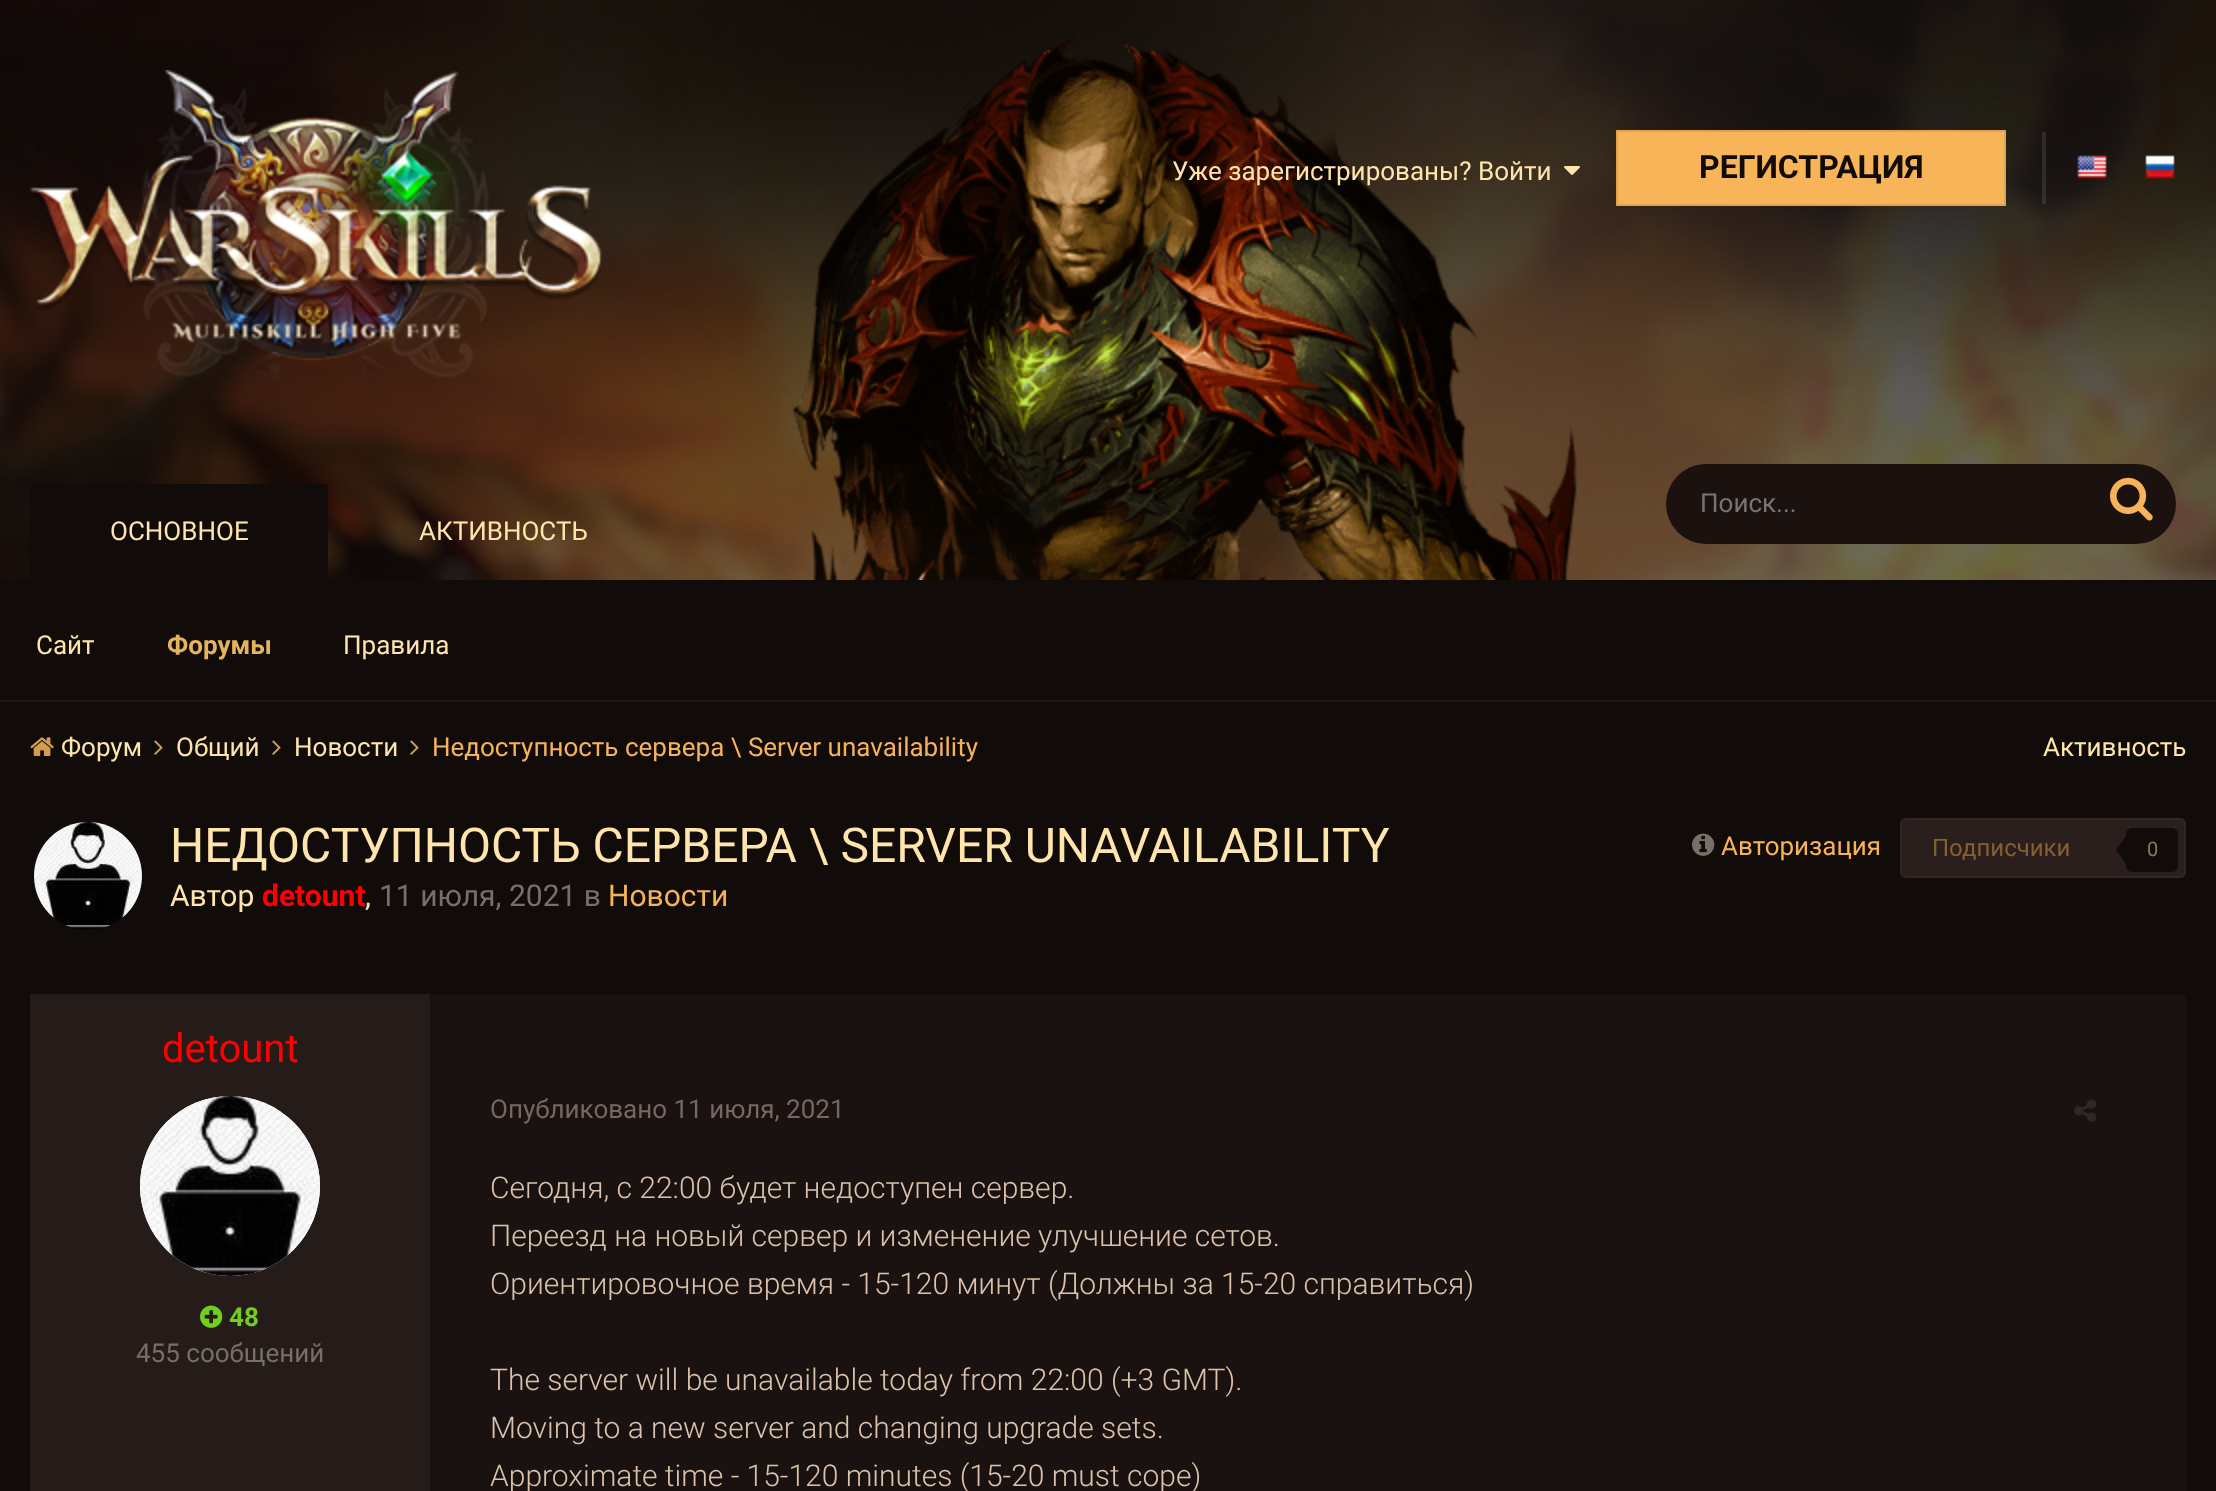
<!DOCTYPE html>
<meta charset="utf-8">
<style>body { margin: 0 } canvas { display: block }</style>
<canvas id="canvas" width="2216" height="1491"></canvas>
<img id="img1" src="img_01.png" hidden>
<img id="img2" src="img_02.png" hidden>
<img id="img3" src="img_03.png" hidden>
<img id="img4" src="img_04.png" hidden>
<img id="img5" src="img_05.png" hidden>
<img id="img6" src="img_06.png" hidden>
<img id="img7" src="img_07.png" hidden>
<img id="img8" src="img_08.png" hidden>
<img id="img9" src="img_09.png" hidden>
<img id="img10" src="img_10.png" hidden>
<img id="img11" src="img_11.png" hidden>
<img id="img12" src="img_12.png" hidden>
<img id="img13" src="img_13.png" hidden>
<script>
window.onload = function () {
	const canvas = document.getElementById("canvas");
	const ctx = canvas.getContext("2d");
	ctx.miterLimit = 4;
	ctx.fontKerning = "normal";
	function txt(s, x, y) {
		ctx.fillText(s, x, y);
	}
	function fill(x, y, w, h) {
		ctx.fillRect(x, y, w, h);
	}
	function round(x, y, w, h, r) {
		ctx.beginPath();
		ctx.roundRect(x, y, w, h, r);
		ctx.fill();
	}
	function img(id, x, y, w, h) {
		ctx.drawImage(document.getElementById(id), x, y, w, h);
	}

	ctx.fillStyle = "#110C0A";
	fill(0, 0, 2216, 1491);
	img("img1", 0, 0, 2216, 580);
	img("img2", 30, 70, 572, 309);
	img("img3", 1564, 166, 16, 9);
	ctx.fillStyle = "#F7B459";
	ctx.beginPath();
	ctx.rect(1617, 131, 388, 74);
	ctx.fill();
	ctx.strokeStyle = "#DEA250";
	ctx.lineWidth = 2;
	ctx.stroke();
	ctx.fillStyle = "rgba(255, 255, 255, 0.1)";
	fill(2042, 132, 4, 72);
	img("img4", 2077, 155, 30, 24);
	img("img5", 2145, 155, 30, 24);
	ctx.fillStyle = "#211614";
	fill(0, 700, 2216, 2);
	ctx.fillStyle = "#1B1210";
	round(1666, 464, 510, 80, 40);
	img("img6", 2110, 477, 43, 44);
	ctx.fillStyle = "#110C0A";
	ctx.beginPath();
	ctx.roundRect(30, 484, 298, 96, [4, 4, 0, 0]);
	ctx.fill();
	img("img7", 30, 737, 24, 19);
	img("img8", 154, 740, 9, 15);
	img("img8", 272, 740, 9, 15);
	img("img8", 410, 740, 9, 15);
	img("img9", 34, 822, 108, 108);
	img("img10", 1692, 833, 23, 23);
	ctx.fillStyle = "#2A1F1C";
	ctx.beginPath();
	ctx.roundRect(1901, 819, 284, 58, 5);
	ctx.fill();
	ctx.strokeStyle = "#322623";
	ctx.stroke();
	ctx.fillStyle = "#110C0A";
	round(2126, 828, 52, 44, 6);
	ctx.beginPath();
	ctx.moveTo(2126, 836);
	ctx.lineTo(2126, 864);
	ctx.lineTo(2116, 850);
	ctx.closePath();
	ctx.fill();
	ctx.fillStyle = "#191210";
	fill(430, 994, 1756, 497);
	ctx.fillStyle = "#251C19";
	fill(30, 994, 400, 497);
	ctx.fillStyle = "#FFFFFF";
	ctx.beginPath();
	ctx.arc(230, 1186, 90, 0, Math.PI * 2);
	ctx.fill();
	img("img11", 140, 1096, 180, 180);
	img("img12", 200, 1305, 23, 23);
	img("img13", 2074, 1099, 23, 23);
	ctx.font = "26px Roboto";
	ctx.fillStyle = "#FFE5AC";
	txt("Уже зарегистрированы? Войти", 1172, 180);
	ctx.font = "bold 32px Roboto";
	ctx.fillStyle = "#110C0A";
	txt("РЕГИСТРАЦИЯ", 1699, 178);
	ctx.font = "26px Roboto";
	ctx.fillStyle = "#757575";
	txt("Поиск...", 1700, 512);
	ctx.fillStyle = "#FFE5AC";
	txt("ОСНОВНОЕ", 110, 540);
	txt("Сайт", 36, 654);
	ctx.font = "bold 26px Roboto";
	ctx.fillStyle = "#E6B35F";
	txt("Форумы", 167, 654);
	ctx.font = "26px Roboto";
	ctx.fillStyle = "#FFE5AC";
	txt("Правила", 343, 654);
	txt("АКТИВНОСТЬ", 419, 540);
	txt("Форум", 61, 756);
	txt("Общий", 176, 756);
	txt("Новости", 294, 756);
	ctx.fillStyle = "#F7B359";
	txt("Недоступность сервера \\ Server unavailability", 432, 756);
	ctx.fillStyle = "#FFE5AC";
	txt("Активность", 2043, 756);
	ctx.font = "48px Roboto";
	txt("НЕДОСТУПНОСТЬ СЕРВЕРА \\ SERVER UNAVAILABILITY", 170, 862);
	ctx.font = "30px Roboto";
	txt("Автор", 170, 906);
	ctx.font = "bold 30px Roboto";
	ctx.fillStyle = "#FF0000";
	txt("detount", 262, 906);
	ctx.font = "30px Roboto";
	ctx.fillStyle = "#FFE5AC";
	txt(",", 365, 906);
	ctx.fillStyle = "#786F68";
	txt("11 июля, 2021 в", 379, 906);
	ctx.fillStyle = "#F7B359";
	txt("Новости", 608, 906);
	ctx.font = "26px Roboto";
	txt("Авторизация", 1721, 855);
	ctx.font = "24px Roboto";
	ctx.fillStyle = "#846032";
	txt("Подписчики", 1932, 856);
	ctx.font = "20px Roboto";
	ctx.fillStyle = "#88795B";
	txt("0", 2147, 856);
	ctx.font = "40px Roboto";
	ctx.fillStyle = "#FF0000";
	txt("detount", 162, 1062);
	ctx.font = "bold 26px Roboto";
	ctx.fillStyle = "#71CE1E";
	txt("48", 229, 1326);
	ctx.font = "26px Roboto";
	ctx.fillStyle = "#786F68";
	txt("455 сообщений", 136, 1362);
	ctx.fillStyle = "#796660";
	txt("Опубликовано 11 июля, 2021", 490, 1118);
	ctx.font = "300 30px Roboto";
	ctx.fillStyle = "#DCC2AC";
	txt("Сегодня, с 22:00 будет недоступен сервер.", 490, 1198);
	txt("Переезд на новый сервер и изменение улучшение сетов.", 490, 1246);
	txt("Ориентировочное время - 15-120 минут (Должны за 15-20 справиться)", 490, 1294);
	txt("The server will be unavailable today from 22:00 (+3 GMT).", 490, 1390);
	txt("Moving to a new server and changing upgrade sets.", 490, 1438);
	txt("Approximate time - 15-120 minutes (15-20 must cope)", 490, 1486);
};
</script>
